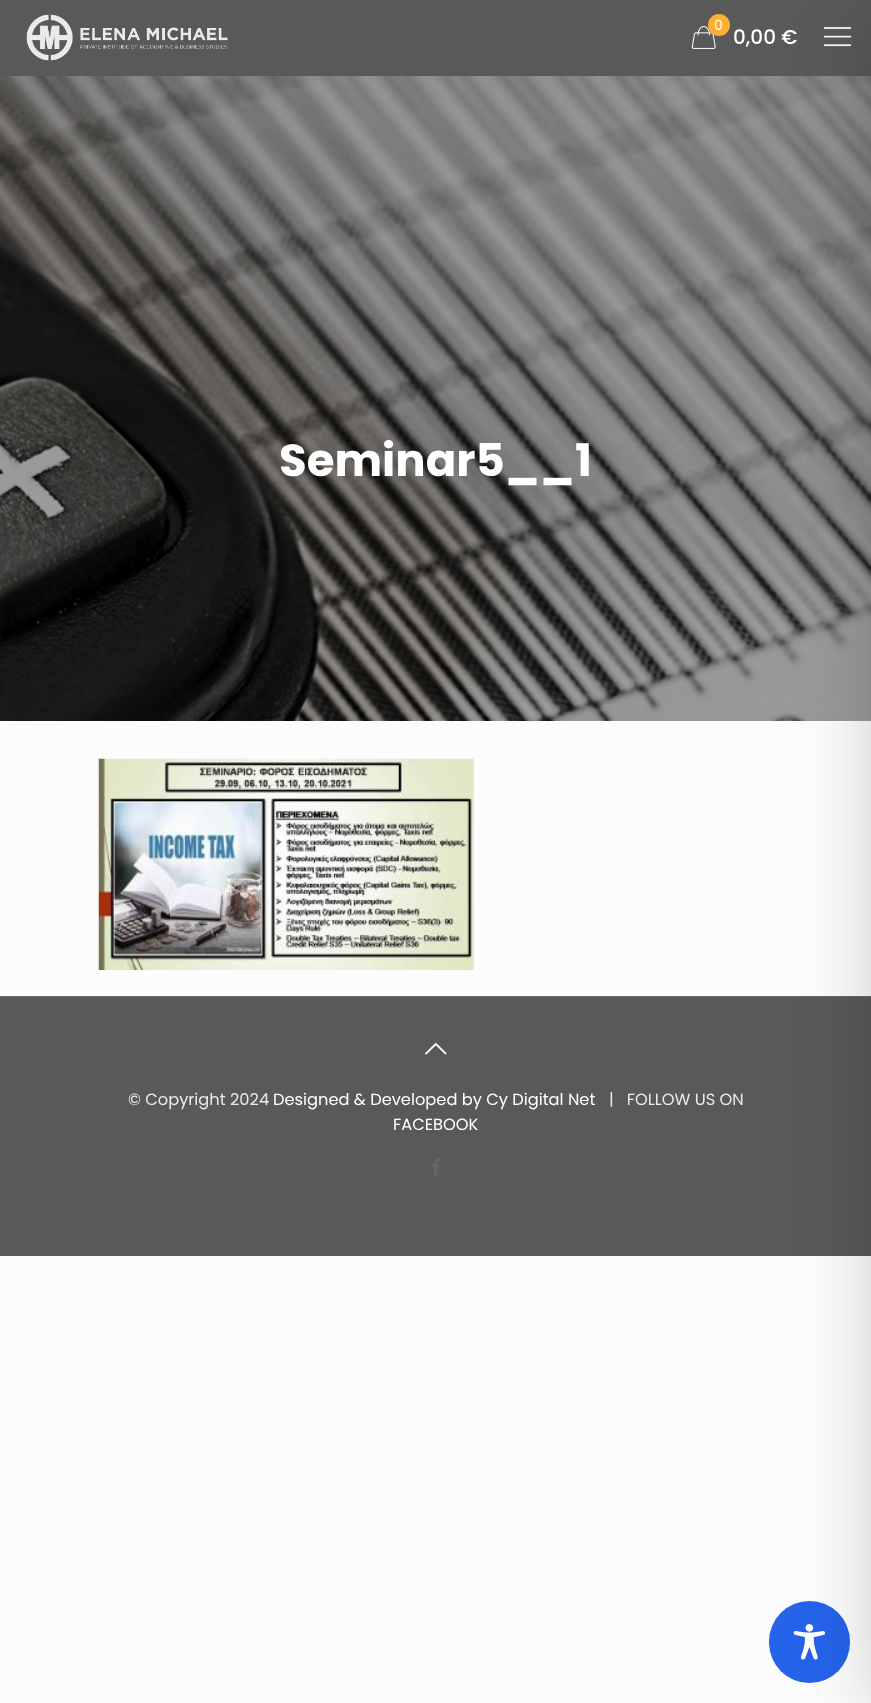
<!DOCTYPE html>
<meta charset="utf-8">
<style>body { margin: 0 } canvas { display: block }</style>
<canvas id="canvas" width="871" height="1703"></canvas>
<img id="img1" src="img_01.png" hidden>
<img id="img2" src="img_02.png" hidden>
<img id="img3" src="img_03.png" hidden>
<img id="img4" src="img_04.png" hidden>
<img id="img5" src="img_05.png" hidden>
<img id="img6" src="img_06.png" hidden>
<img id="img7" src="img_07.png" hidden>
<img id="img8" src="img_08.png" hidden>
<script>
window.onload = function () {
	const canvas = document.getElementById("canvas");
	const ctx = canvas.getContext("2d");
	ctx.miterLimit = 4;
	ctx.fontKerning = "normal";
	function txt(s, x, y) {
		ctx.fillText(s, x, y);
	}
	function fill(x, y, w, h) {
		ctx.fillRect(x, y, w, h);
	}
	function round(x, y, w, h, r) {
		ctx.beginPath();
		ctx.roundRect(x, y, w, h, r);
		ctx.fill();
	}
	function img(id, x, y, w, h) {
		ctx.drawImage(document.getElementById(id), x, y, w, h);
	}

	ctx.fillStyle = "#FCFCFC";
	fill(0, 0, 871, 1703);
	img("img1", 0, 76, 871, 645);
	ctx.fillStyle = "#595959";
	fill(0, 0, 871, 76);
	img("img2", 26, 14, 202, 47);
	img("img3", 823, 27, 29, 20);
	img("img4", 691, 26, 25, 23);
	ctx.fillStyle = "#FFAF30";
	ctx.beginPath();
	ctx.arc(719, 25, 11, 0, Math.PI * 2);
	ctx.fill();
	img("img5", 98, 758, 376, 212);
	ctx.fillStyle = "#595959";
	fill(0, 997, 871, 259);
	ctx.fillStyle = "#6A6A6A";
	fill(0, 996, 871, 1);
	img("img6", 425, 1043, 22, 12);
	img("img7", 431, 1158, 10, 18);
	ctx.fillStyle = "#2563EB";
	round(769, 1601, 81, 82, 40.5);
	img("img8", 793, 1624, 32, 36);
	ctx.fillStyle = "rgba(0, 0, 0, 0.2)";
	ctx.filter = "blur(37.5px)";
	ctx.beginPath();
	ctx.rect(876, 13, 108, 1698);
	ctx.fill();
	ctx.filter = "none";
	ctx.font = "14px Poppins";
	ctx.fillStyle = "#FFFFFF";
	txt("0", 714, 30);
	ctx.font = "500 20px Poppins";
	txt("0,00 €", 733, 44);
	ctx.font = "bold 45px Poppins";
	txt("Seminar5__1", 279, 476);
	ctx.font = "16.25px Poppins";
	ctx.fillStyle = "#EAEAEA";
	txt("© Copyright 2024", 128, 1105);
	ctx.fillStyle = "#FFFFFF";
	txt("Designed & Developed by Cy Digital Net", 273, 1105);
	ctx.fillStyle = "#EAEAEA";
	txt("|   FOLLOW US ON", 609, 1105);
	ctx.fillStyle = "#FFFFFF";
	txt("FACEBOOK", 393, 1130);
};
</script>
